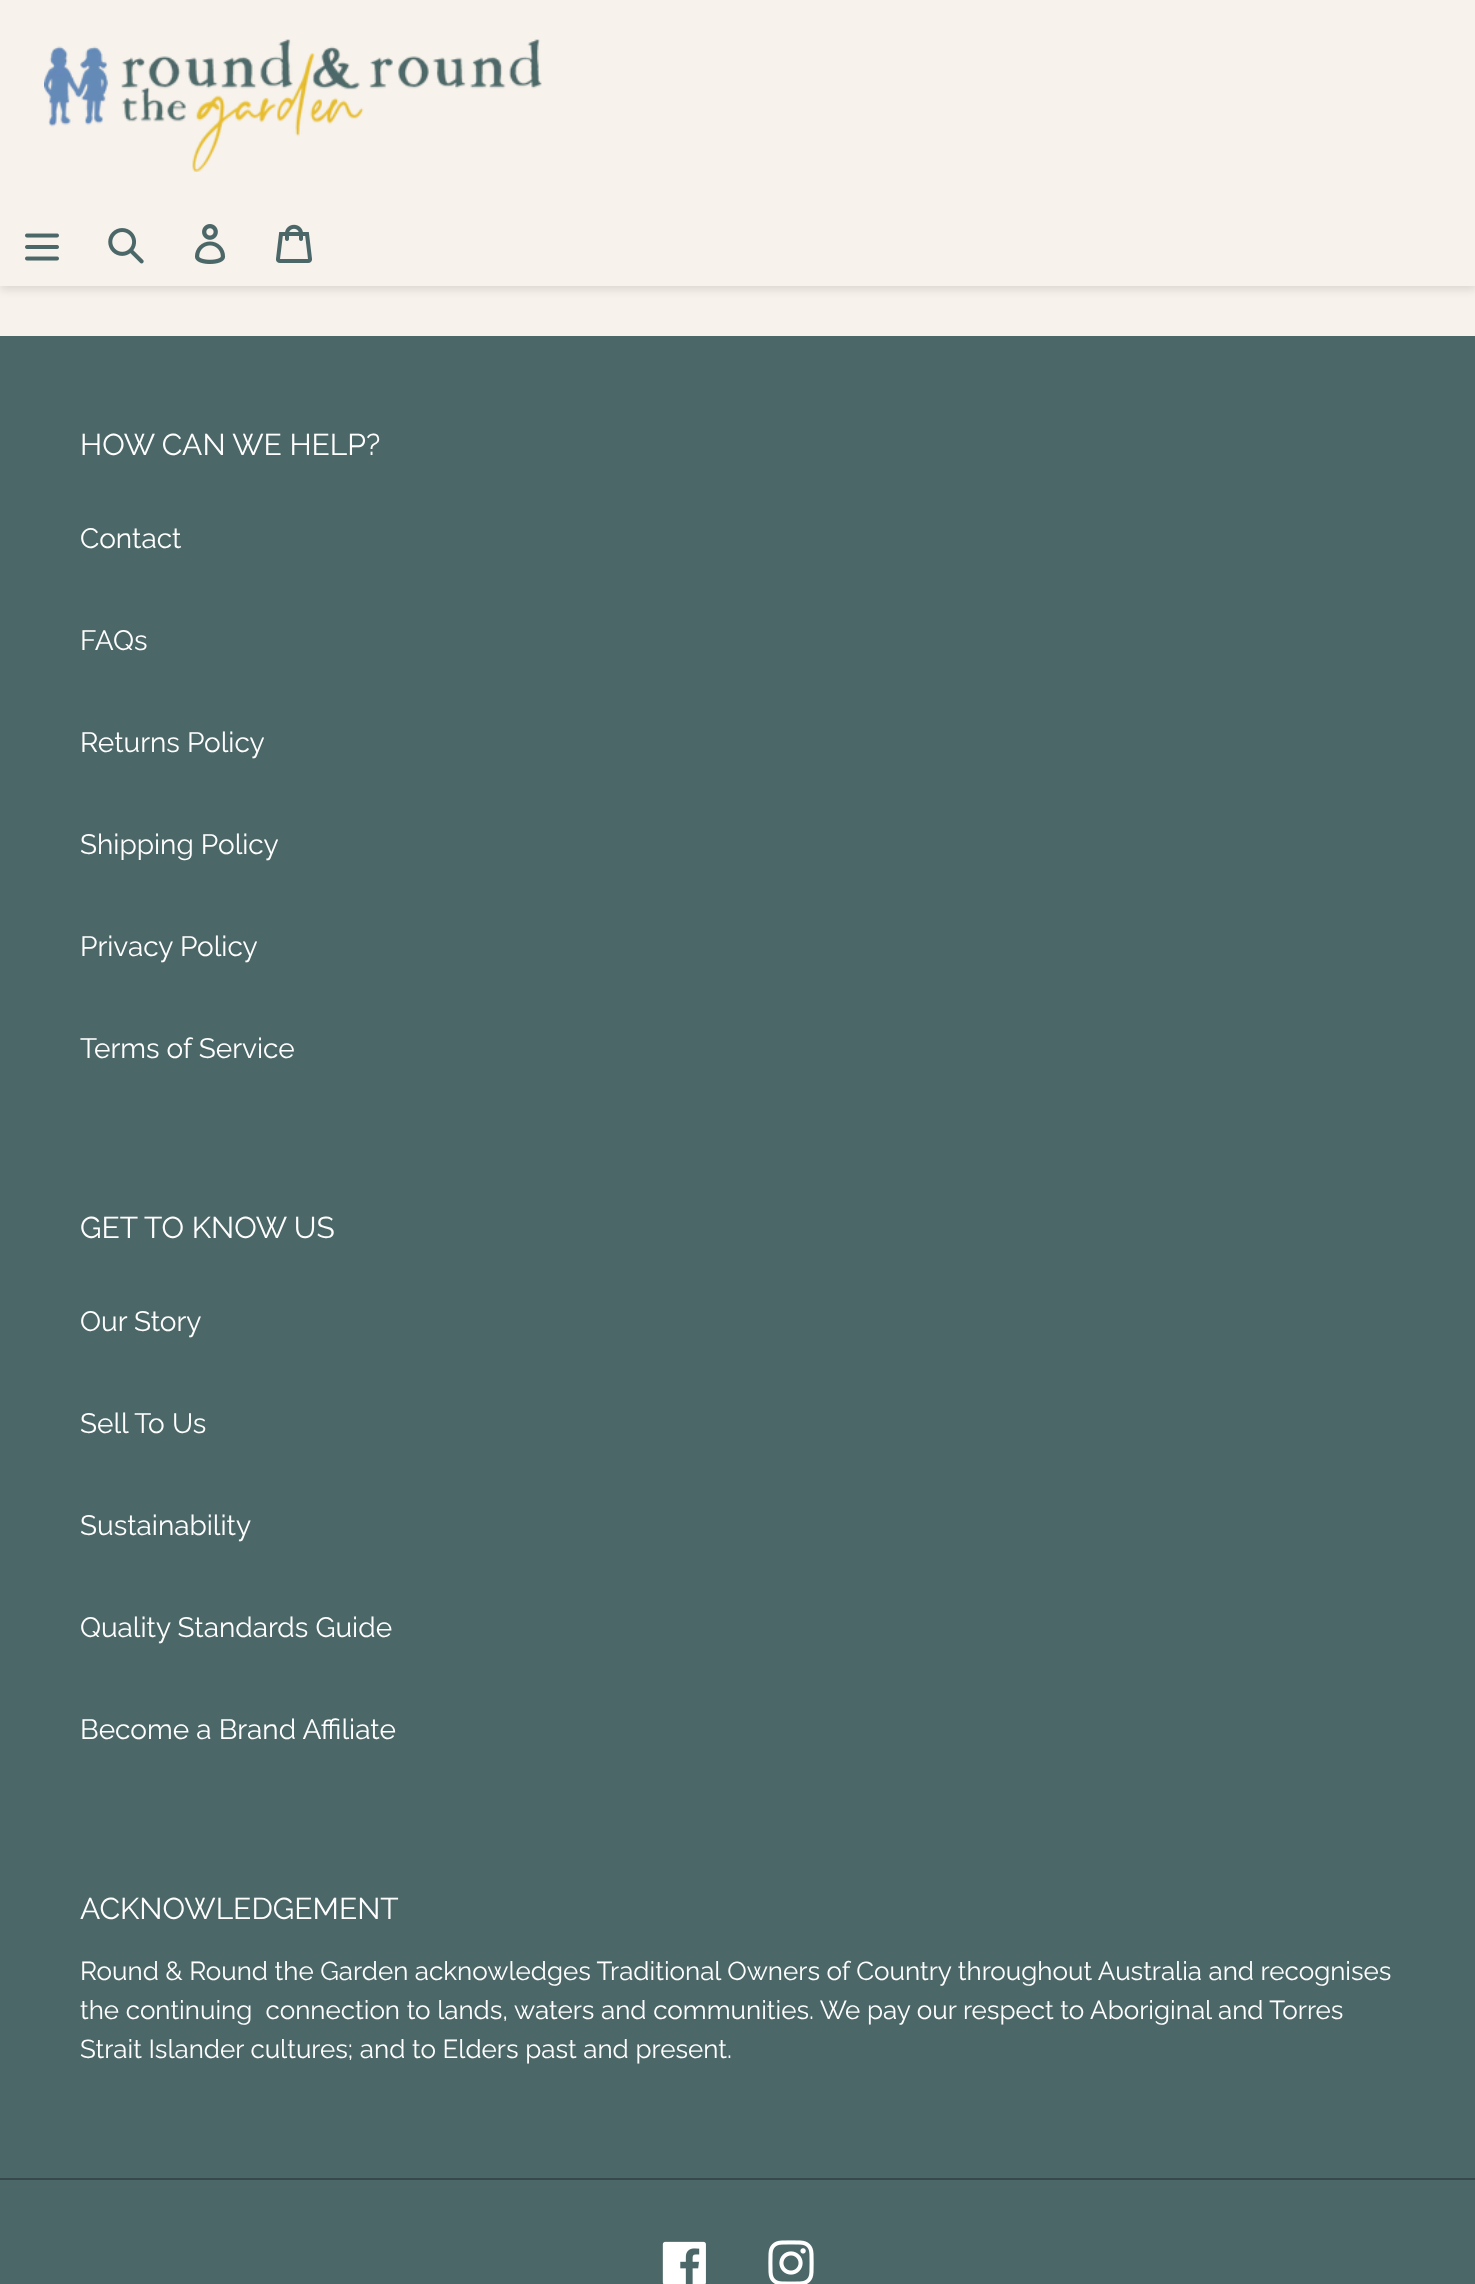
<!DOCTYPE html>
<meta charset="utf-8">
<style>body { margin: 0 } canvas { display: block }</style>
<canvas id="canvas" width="1475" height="2284"></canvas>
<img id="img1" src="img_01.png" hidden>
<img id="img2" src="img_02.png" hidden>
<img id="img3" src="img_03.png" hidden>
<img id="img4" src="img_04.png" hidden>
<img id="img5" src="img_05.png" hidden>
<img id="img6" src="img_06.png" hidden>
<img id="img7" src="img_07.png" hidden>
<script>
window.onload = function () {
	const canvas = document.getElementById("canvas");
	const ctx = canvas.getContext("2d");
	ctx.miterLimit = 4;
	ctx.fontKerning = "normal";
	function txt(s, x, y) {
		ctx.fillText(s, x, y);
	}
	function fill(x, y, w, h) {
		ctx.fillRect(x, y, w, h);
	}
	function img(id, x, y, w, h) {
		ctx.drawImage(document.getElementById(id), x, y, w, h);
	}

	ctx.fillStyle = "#F7F2EB";
	fill(0, 0, 1475, 2284);
	ctx.fillStyle = "rgba(0, 0, 0, 0.1)";
	ctx.filter = "blur(4px)";
	ctx.beginPath();
	ctx.rect(0, 4, 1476, 286);
	ctx.fill();
	ctx.filter = "none";
	ctx.fillStyle = "#F7F2EB";
	fill(0, 0, 1475, 286);
	img("img1", 44, 39, 498, 133);
	img("img2", 25, 233, 34, 28);
	img("img3", 108, 228, 36, 36);
	img("img4", 195, 224, 31, 40);
	img("img5", 276, 224, 36, 39);
	ctx.fillStyle = "#4C6768";
	fill(0, 336, 1475, 1948);
	ctx.fillStyle = "#364A4B";
	fill(0, 2178, 1475, 2);
	img("img6", 662, 2241, 44, 43);
	img("img7", 768, 2240, 46, 44);
	ctx.font = "30px Raleway";
	ctx.fillStyle = "#FFFFFF";
	txt("HOW CAN WE HELP?", 80, 455);
	ctx.font = "28px Raleway";
	txt("Contact", 80, 548);
	txt("FAQs", 80, 650);
	txt("Returns Policy", 80, 752);
	txt("Shipping Policy", 80, 854);
	txt("Privacy Policy", 80, 956);
	txt("Terms of Service", 80, 1058);
	ctx.font = "30px Raleway";
	txt("GET TO KNOW US", 80, 1238);
	ctx.font = "28px Raleway";
	txt("Our Story", 80, 1331);
	txt("Sell To Us", 80, 1433);
	txt("Sustainability", 80, 1535);
	txt("Quality Standards Guide", 80, 1637);
	txt("Become a Brand Affiliate", 80, 1739);
	ctx.font = "30px Raleway";
	txt("ACKNOWLEDGEMENT", 80, 1919);
	ctx.wordSpacing = "-0.1px";
	ctx.font = "26px Raleway";
	txt("Round & Round the Garden acknowledges Traditional Owners of Country throughout Australia and recognises", 80, 1980);
	ctx.wordSpacing = "0px";
	txt("the continuing  connection to lands, waters and communities. We pay our respect to Aboriginal and Torres", 80, 2019);
	txt("Strait Islander cultures; and to Elders past and present.", 80, 2058);
};
</script>
